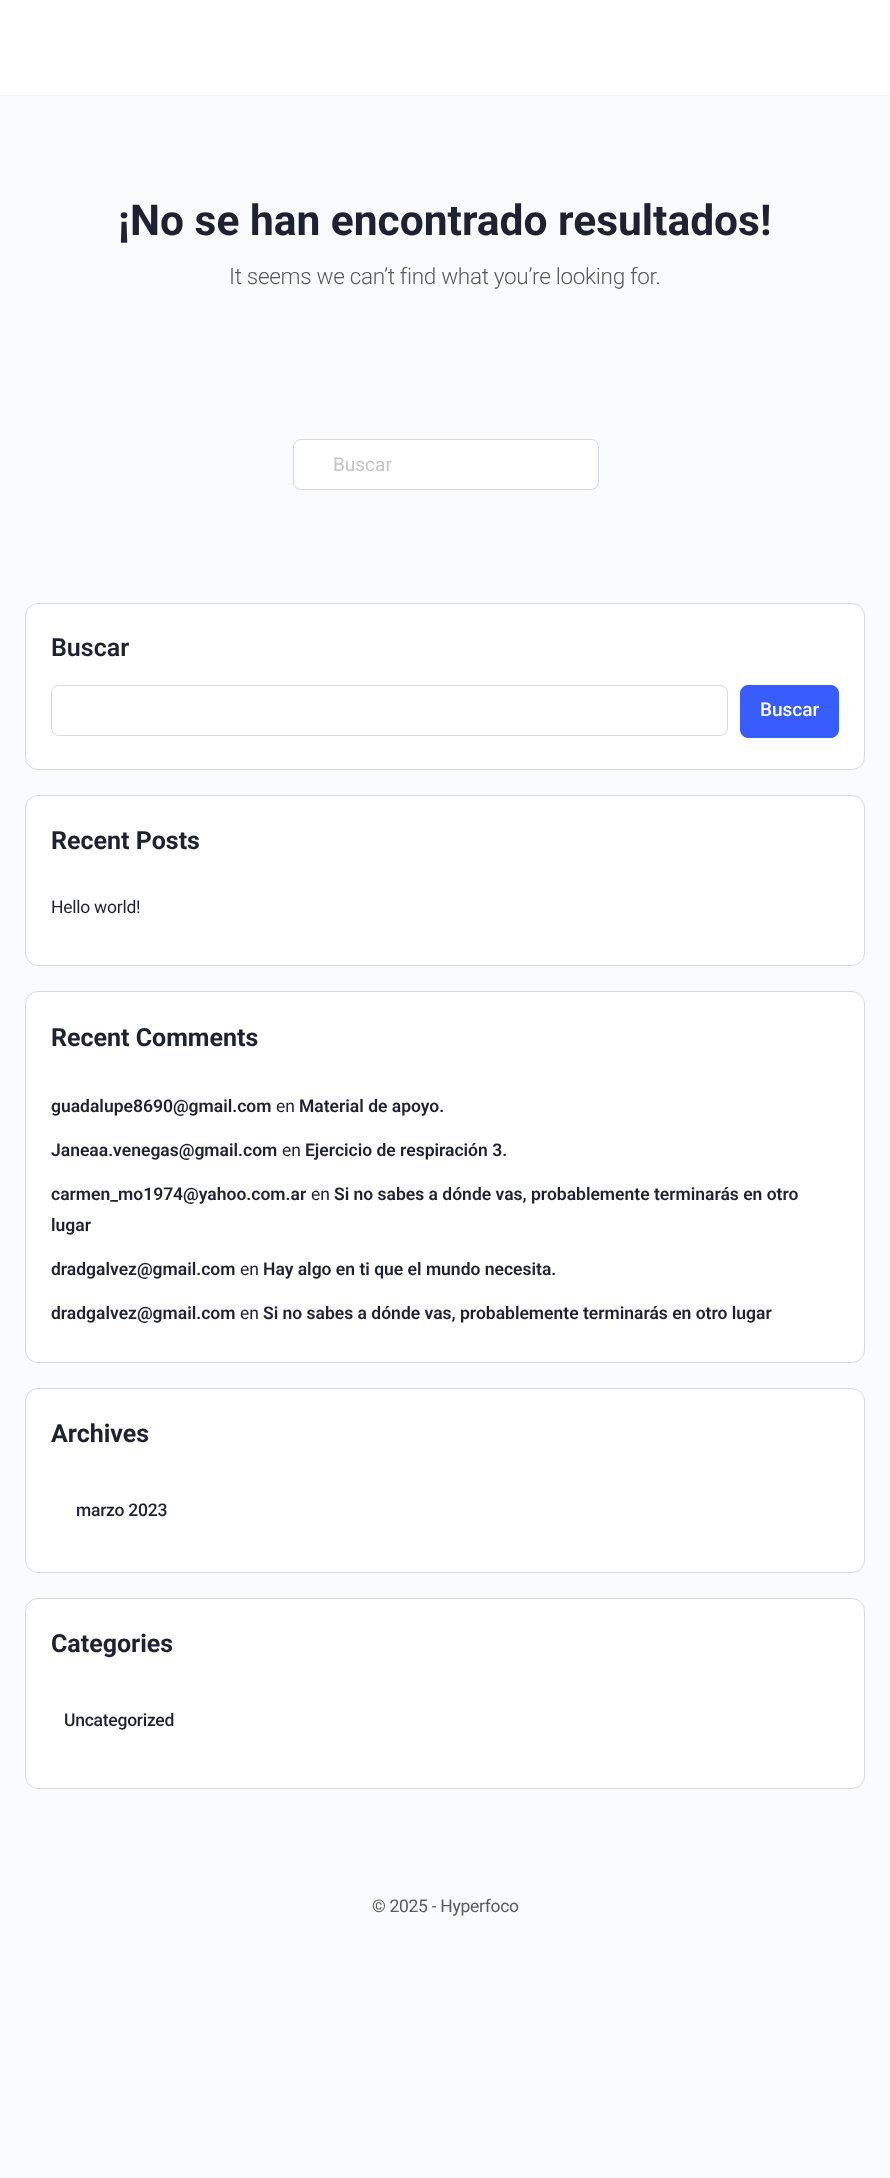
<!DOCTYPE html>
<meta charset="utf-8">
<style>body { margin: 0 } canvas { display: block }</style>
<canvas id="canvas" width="890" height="2178"></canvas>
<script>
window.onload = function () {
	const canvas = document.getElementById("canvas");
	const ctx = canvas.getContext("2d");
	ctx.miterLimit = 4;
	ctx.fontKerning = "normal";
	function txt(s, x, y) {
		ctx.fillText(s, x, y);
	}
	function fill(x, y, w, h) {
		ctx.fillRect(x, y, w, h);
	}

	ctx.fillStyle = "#FAFBFD";
	fill(0, 0, 890, 2178);
	ctx.fillStyle = "#F2F3F6";
	fill(0, 95, 890, 1);
	ctx.fillStyle = "#FFFFFF";
	fill(0, 0, 890, 95);
	ctx.beginPath();
	ctx.roundRect(293.5, 439.5, 305, 50, 7.5);
	ctx.fill();
	ctx.strokeStyle = "#D6D9DD";
	ctx.stroke();
	ctx.beginPath();
	ctx.roundRect(25.5, 603.5, 839, 166, 12.5);
	ctx.fill();
	ctx.stroke();
	ctx.beginPath();
	ctx.roundRect(51.5, 685.5, 676, 50, 7.5);
	ctx.stroke();
	ctx.fillStyle = "#385DFF";
	ctx.beginPath();
	ctx.roundRect(740.5, 685.5, 98, 52, 7.5);
	ctx.fill();
	ctx.strokeStyle = "#385DFF";
	ctx.stroke();
	ctx.fillStyle = "#FFFFFF";
	ctx.beginPath();
	ctx.roundRect(25.5, 795.5, 839, 170, 12.5);
	ctx.fill();
	ctx.strokeStyle = "#D6D9DD";
	ctx.stroke();
	ctx.beginPath();
	ctx.roundRect(25.5, 991.5, 839, 371, 12.5);
	ctx.fill();
	ctx.stroke();
	ctx.beginPath();
	ctx.roundRect(25.5, 1388.5, 839, 184, 12.5);
	ctx.fill();
	ctx.stroke();
	ctx.beginPath();
	ctx.roundRect(25.5, 1598.5, 839, 190, 12.5);
	ctx.fill();
	ctx.stroke();
	ctx.font = "bold 42.5px Roboto";
	ctx.fillStyle = "#1E2132";
	txt("¡No se han encontrado resultados!", 118, 235);
	ctx.letterSpacing = "-0.3px";
	ctx.font = "300 22.5px Roboto";
	ctx.fillStyle = "#5A5A5A";
	txt("It seems we can’t find what you’re looking for.", 229, 284);
	ctx.letterSpacing = "0px";
	ctx.font = "19px Roboto";
	ctx.fillStyle = "#C3C6C9";
	txt("Buscar", 333, 471);
	ctx.font = "600 25px Roboto";
	ctx.fillStyle = "#1E2132";
	txt("Buscar", 51, 656);
	ctx.font = "500 19px Roboto";
	ctx.fillStyle = "#FFFFFF";
	txt("Buscar", 760, 716);
	ctx.font = "bold 25px Roboto";
	ctx.fillStyle = "#1E2132";
	txt("Recent Posts", 51, 849);
	ctx.letterSpacing = "-0.25px";
	ctx.font = "17.5px Roboto";
	txt("Hello world!", 51, 913);
	ctx.letterSpacing = "0px";
	ctx.font = "bold 25px Roboto";
	txt("Recent Comments", 51, 1046);
	ctx.font = "600 17.5px Roboto";
	txt("guadalupe8690@gmail.com", 51, 1112);
	ctx.font = "17.5px Roboto";
	txt("en", 276, 1112);
	ctx.font = "600 17.5px Roboto";
	txt("Material de apoyo.", 299, 1112);
	txt("Janeaa.venegas@gmail.com", 51, 1156);
	ctx.font = "17.5px Roboto";
	txt("en", 282, 1156);
	ctx.font = "600 17.5px Roboto";
	txt("Ejercicio de respiración 3.", 305, 1156);
	txt("carmen_mo1974@yahoo.com.ar", 51, 1200);
	ctx.font = "17.5px Roboto";
	txt("en", 311, 1200);
	ctx.font = "600 17.5px Roboto";
	txt("Si no sabes a dónde vas, probablemente terminarás en otro", 334, 1200);
	txt("lugar", 51, 1231);
	txt("dradgalvez@gmail.com", 51, 1275);
	ctx.font = "17.5px Roboto";
	txt("en", 240, 1275);
	ctx.font = "600 17.5px Roboto";
	txt("Hay algo en ti que el mundo necesita.", 263, 1275);
	txt("dradgalvez@gmail.com", 51, 1319);
	ctx.font = "17.5px Roboto";
	txt("en", 240, 1319);
	ctx.font = "600 17.5px Roboto";
	txt("Si no sabes a dónde vas, probablemente terminarás en otro lugar", 263, 1319);
	ctx.font = "bold 25px Roboto";
	txt("Archives", 51, 1442);
	ctx.letterSpacing = "-0.25px";
	ctx.font = "500 17.5px Roboto";
	txt("marzo 2023", 76, 1516);
	ctx.letterSpacing = "0px";
	ctx.font = "bold 25px Roboto";
	txt("Categories", 51, 1652);
	ctx.letterSpacing = "-0.25px";
	ctx.font = "500 17.5px Roboto";
	txt("Uncategorized", 64, 1726);
	ctx.letterSpacing = "-0.3px";
	ctx.font = "17.5px Roboto";
	ctx.fillStyle = "#5A5A5A";
	txt("© 2025 - Hyperfoco", 372, 1912);
};
</script>
